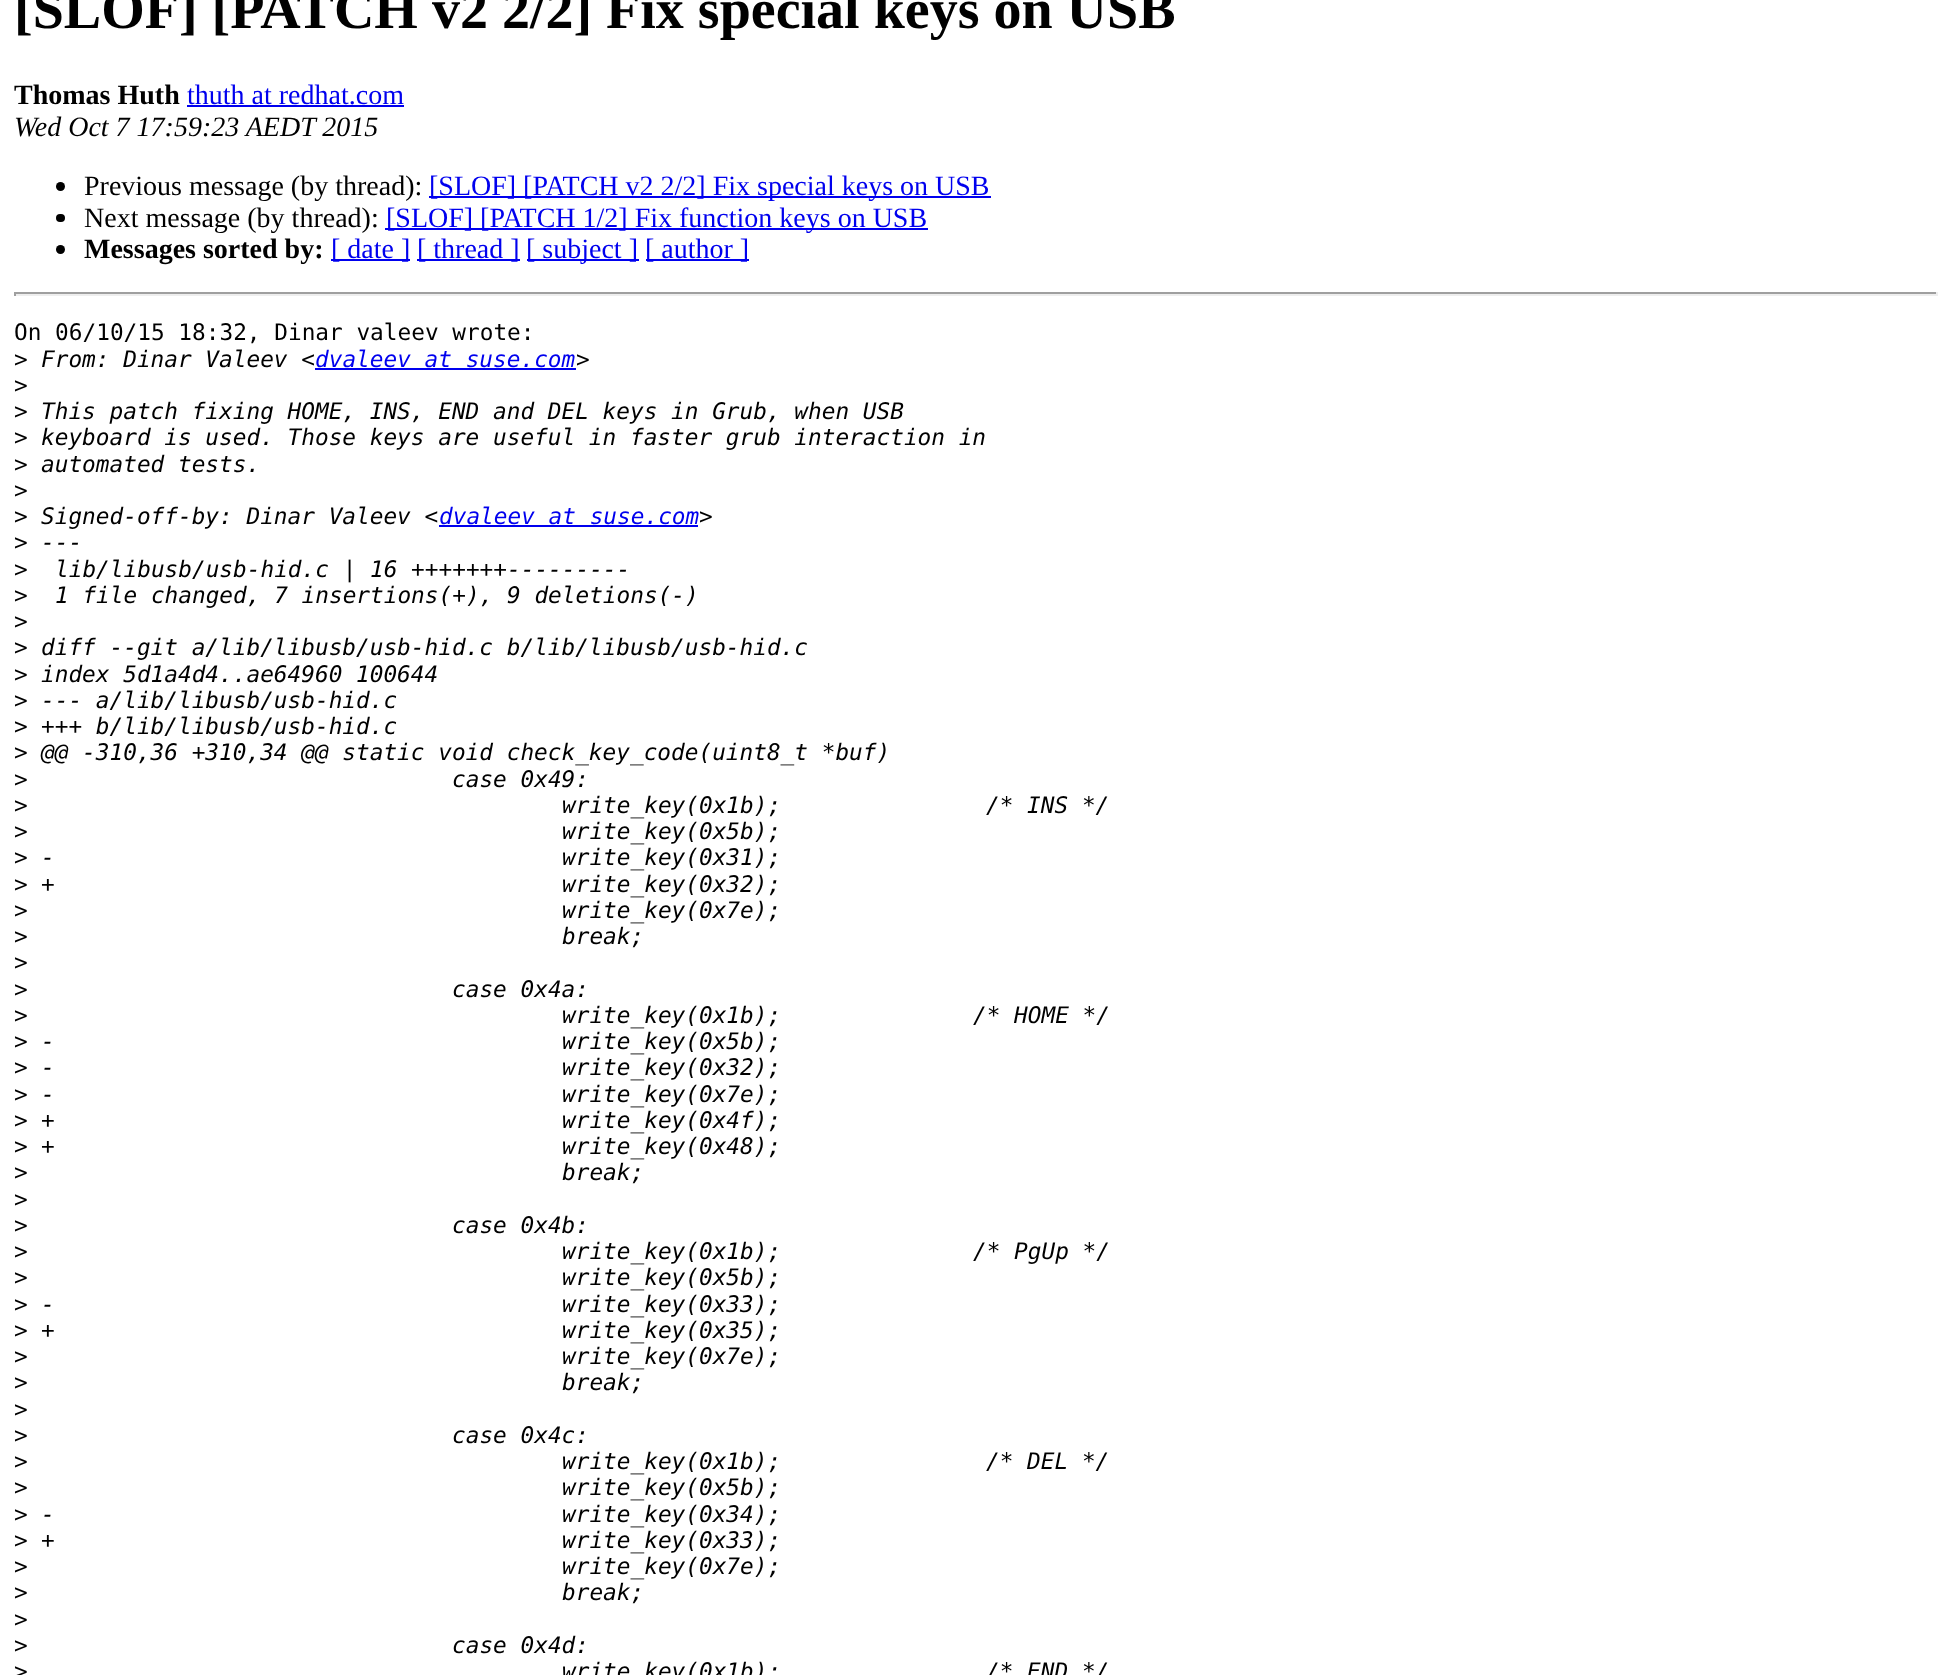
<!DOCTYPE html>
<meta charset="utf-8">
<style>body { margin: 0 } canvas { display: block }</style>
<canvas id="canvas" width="1951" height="1675"></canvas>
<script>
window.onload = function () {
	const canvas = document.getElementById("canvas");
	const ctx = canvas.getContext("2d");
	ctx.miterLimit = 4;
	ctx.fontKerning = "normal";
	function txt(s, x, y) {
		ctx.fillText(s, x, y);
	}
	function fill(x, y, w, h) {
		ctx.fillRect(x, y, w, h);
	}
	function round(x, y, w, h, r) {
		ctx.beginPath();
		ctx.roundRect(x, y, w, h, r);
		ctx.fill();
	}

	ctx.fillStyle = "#FFFFFF";
	fill(0, 0, 1951, 1675);
	ctx.fillStyle = "#0000EE";
	fill(187, 105, 217, 2);
	ctx.fillStyle = "#000000";
	ctx.beginPath();
	ctx.arc(60.5, 186.5, 4.5, 0, Math.PI * 2);
	ctx.fill();
	ctx.fillStyle = "#0000EE";
	fill(429, 196, 562, 2);
	ctx.fillStyle = "#000000";
	round(56, 214, 9, 8, 4);
	ctx.fillStyle = "#0000EE";
	fill(385, 228, 543, 2);
	ctx.fillStyle = "#000000";
	ctx.beginPath();
	ctx.arc(60.5, 249.5, 4.5, 0, Math.PI * 2);
	ctx.fill();
	ctx.fillStyle = "#0000EE";
	fill(331, 259, 79, 2);
	fill(417, 259, 103, 2);
	fill(527, 259, 112, 2);
	fill(646, 259, 103, 2);
	ctx.fillStyle = "#9F9F9F";
	fill(14, 292, 1923, 2);
	ctx.fillStyle = "#EEEEEE";
	fill(1936, 292, 2, 4);
	fill(14, 294, 1923, 2);
	ctx.fillStyle = "#9F9F9F";
	fill(14, 292, 2, 4);
	ctx.fillStyle = "#0000EE";
	fill(315, 368, 261, 2);
	fill(439, 525, 259, 2);
	ctx.font = "bold 56px Liberation Serif";
	ctx.fillStyle = "#000000";
	txt("[SLOF] [PATCH v2 2/2] Fix special keys on USB", 14, 28);
	ctx.font = "bold 28px Liberation Serif";
	txt("Thomas Huth", 14, 104);
	ctx.font = "28px Liberation Serif";
	ctx.fillStyle = "#0000EE";
	txt("thuth at redhat.com", 187, 104);
	ctx.font = "italic 28px Liberation Serif";
	ctx.fillStyle = "#000000";
	txt("Wed Oct 7 17:59:23 AEDT 2015", 14, 136);
	ctx.font = "28px Liberation Serif";
	txt("Previous message (by thread):", 84, 195);
	ctx.fillStyle = "#0000EE";
	txt("[SLOF] [PATCH v2 2/2] Fix special keys on USB", 429, 195);
	ctx.fillStyle = "#000000";
	txt("Next message (by thread):", 84, 227);
	ctx.fillStyle = "#0000EE";
	txt("[SLOF] [PATCH 1/2] Fix function keys on USB", 386, 227);
	ctx.font = "bold 28px Liberation Serif";
	ctx.fillStyle = "#000000";
	txt("Messages sorted by:", 84, 258);
	ctx.font = "28px Liberation Serif";
	ctx.fillStyle = "#0000EE";
	txt("[ date ]", 331, 258);
	txt("[ thread ]", 417, 258);
	txt("[ subject ]", 526, 258);
	txt("[ author ]", 645, 258);
	ctx.font = "22.75px DejaVu Sans Mono";
	ctx.fillStyle = "#000000";
	txt("On 06/10/15 18:32, Dinar valeev wrote:", 14, 340);
	txt(">", 14, 367);
	ctx.font = "italic 22.75px DejaVu Sans Mono";
	txt("From: Dinar Valeev <", 41, 367);
	ctx.fillStyle = "#0000EE";
	txt("dvaleev at suse.com", 315, 367);
	ctx.fillStyle = "#000000";
	txt(">", 576, 367);
	ctx.font = "22.75px DejaVu Sans Mono";
	txt(">", 14, 393);
	txt(">", 14, 419);
	ctx.font = "italic 22.75px DejaVu Sans Mono";
	txt("This patch fixing HOME, INS, END and DEL keys in Grub, when USB", 41, 419);
	ctx.font = "22.75px DejaVu Sans Mono";
	txt(">", 14, 445);
	ctx.font = "italic 22.75px DejaVu Sans Mono";
	txt("keyboard is used. Those keys are useful in faster grub interaction in", 41, 445);
	ctx.font = "22.75px DejaVu Sans Mono";
	txt(">", 14, 472);
	ctx.font = "italic 22.75px DejaVu Sans Mono";
	txt("automated tests.", 41, 472);
	ctx.font = "22.75px DejaVu Sans Mono";
	txt(">", 14, 498);
	txt(">", 14, 524);
	ctx.font = "italic 22.75px DejaVu Sans Mono";
	txt("Signed-off-by: Dinar Valeev <", 41, 524);
	ctx.fillStyle = "#0000EE";
	txt("dvaleev at suse.com", 439, 524);
	ctx.fillStyle = "#000000";
	txt(">", 699, 524);
	ctx.font = "22.75px DejaVu Sans Mono";
	txt(">", 14, 550);
	ctx.font = "italic 22.75px DejaVu Sans Mono";
	txt("---", 41, 550);
	ctx.font = "22.75px DejaVu Sans Mono";
	txt(">", 14, 577);
	ctx.font = "italic 22.75px DejaVu Sans Mono";
	txt("lib/libusb/usb-hid.c | 16 +++++++---------", 55, 577);
	ctx.font = "22.75px DejaVu Sans Mono";
	txt(">", 14, 603);
	ctx.font = "italic 22.75px DejaVu Sans Mono";
	txt("1 file changed, 7 insertions(+), 9 deletions(-)", 55, 603);
	ctx.font = "22.75px DejaVu Sans Mono";
	txt(">", 14, 629);
	txt(">", 14, 655);
	ctx.font = "italic 22.75px DejaVu Sans Mono";
	txt("diff --git a/lib/libusb/usb-hid.c b/lib/libusb/usb-hid.c", 41, 655);
	ctx.font = "22.75px DejaVu Sans Mono";
	txt(">", 14, 682);
	ctx.font = "italic 22.75px DejaVu Sans Mono";
	txt("index 5d1a4d4..ae64960 100644", 41, 682);
	ctx.font = "22.75px DejaVu Sans Mono";
	txt(">", 14, 708);
	ctx.font = "italic 22.75px DejaVu Sans Mono";
	txt("--- a/lib/libusb/usb-hid.c", 41, 708);
	ctx.font = "22.75px DejaVu Sans Mono";
	txt(">", 14, 734);
	ctx.font = "italic 22.75px DejaVu Sans Mono";
	txt("+++ b/lib/libusb/usb-hid.c", 41, 734);
	ctx.font = "22.75px DejaVu Sans Mono";
	txt(">", 14, 760);
	ctx.font = "italic 22.75px DejaVu Sans Mono";
	txt("@@ -310,36 +310,34 @@ static void check_key_code(uint8_t *buf)", 41, 760);
	ctx.font = "22.75px DejaVu Sans Mono";
	txt(">", 14, 787);
	ctx.font = "italic 22.75px DejaVu Sans Mono";
	txt("case 0x49:", 452, 787);
	ctx.font = "22.75px DejaVu Sans Mono";
	txt(">", 14, 813);
	ctx.font = "italic 22.75px DejaVu Sans Mono";
	txt("write_key(0x1b);", 562, 813);
	txt("/* INS */", 986, 813);
	ctx.font = "22.75px DejaVu Sans Mono";
	txt(">", 14, 839);
	ctx.font = "italic 22.75px DejaVu Sans Mono";
	txt("write_key(0x5b);", 562, 839);
	ctx.font = "22.75px DejaVu Sans Mono";
	txt(">", 14, 865);
	ctx.font = "italic 22.75px DejaVu Sans Mono";
	txt("-", 41, 865);
	txt("write_key(0x31);", 562, 865);
	ctx.font = "22.75px DejaVu Sans Mono";
	txt(">", 14, 892);
	ctx.font = "italic 22.75px DejaVu Sans Mono";
	txt("+", 41, 892);
	txt("write_key(0x32);", 562, 892);
	ctx.font = "22.75px DejaVu Sans Mono";
	txt(">", 14, 918);
	ctx.font = "italic 22.75px DejaVu Sans Mono";
	txt("write_key(0x7e);", 562, 918);
	ctx.font = "22.75px DejaVu Sans Mono";
	txt(">", 14, 944);
	ctx.font = "italic 22.75px DejaVu Sans Mono";
	txt("break;", 562, 944);
	ctx.font = "22.75px DejaVu Sans Mono";
	txt(">", 14, 970);
	txt(">", 14, 997);
	ctx.font = "italic 22.75px DejaVu Sans Mono";
	txt("case 0x4a:", 452, 997);
	ctx.font = "22.75px DejaVu Sans Mono";
	txt(">", 14, 1023);
	ctx.font = "italic 22.75px DejaVu Sans Mono";
	txt("write_key(0x1b);", 562, 1023);
	txt("/* HOME */", 973, 1023);
	ctx.font = "22.75px DejaVu Sans Mono";
	txt(">", 14, 1049);
	ctx.font = "italic 22.75px DejaVu Sans Mono";
	txt("-", 41, 1049);
	txt("write_key(0x5b);", 562, 1049);
	ctx.font = "22.75px DejaVu Sans Mono";
	txt(">", 14, 1075);
	ctx.font = "italic 22.75px DejaVu Sans Mono";
	txt("-", 41, 1075);
	txt("write_key(0x32);", 562, 1075);
	ctx.font = "22.75px DejaVu Sans Mono";
	txt(">", 14, 1102);
	ctx.font = "italic 22.75px DejaVu Sans Mono";
	txt("-", 41, 1102);
	txt("write_key(0x7e);", 562, 1102);
	ctx.font = "22.75px DejaVu Sans Mono";
	txt(">", 14, 1128);
	ctx.font = "italic 22.75px DejaVu Sans Mono";
	txt("+", 41, 1128);
	txt("write_key(0x4f);", 562, 1128);
	ctx.font = "22.75px DejaVu Sans Mono";
	txt(">", 14, 1154);
	ctx.font = "italic 22.75px DejaVu Sans Mono";
	txt("+", 41, 1154);
	txt("write_key(0x48);", 562, 1154);
	ctx.font = "22.75px DejaVu Sans Mono";
	txt(">", 14, 1180);
	ctx.font = "italic 22.75px DejaVu Sans Mono";
	txt("break;", 562, 1180);
	ctx.font = "22.75px DejaVu Sans Mono";
	txt(">", 14, 1207);
	txt(">", 14, 1233);
	ctx.font = "italic 22.75px DejaVu Sans Mono";
	txt("case 0x4b:", 452, 1233);
	ctx.font = "22.75px DejaVu Sans Mono";
	txt(">", 14, 1259);
	ctx.font = "italic 22.75px DejaVu Sans Mono";
	txt("write_key(0x1b);", 562, 1259);
	txt("/* PgUp */", 973, 1259);
	ctx.font = "22.75px DejaVu Sans Mono";
	txt(">", 14, 1285);
	ctx.font = "italic 22.75px DejaVu Sans Mono";
	txt("write_key(0x5b);", 562, 1285);
	ctx.font = "22.75px DejaVu Sans Mono";
	txt(">", 14, 1312);
	ctx.font = "italic 22.75px DejaVu Sans Mono";
	txt("-", 41, 1312);
	txt("write_key(0x33);", 562, 1312);
	ctx.font = "22.75px DejaVu Sans Mono";
	txt(">", 14, 1338);
	ctx.font = "italic 22.75px DejaVu Sans Mono";
	txt("+", 41, 1338);
	txt("write_key(0x35);", 562, 1338);
	ctx.font = "22.75px DejaVu Sans Mono";
	txt(">", 14, 1364);
	ctx.font = "italic 22.75px DejaVu Sans Mono";
	txt("write_key(0x7e);", 562, 1364);
	ctx.font = "22.75px DejaVu Sans Mono";
	txt(">", 14, 1390);
	ctx.font = "italic 22.75px DejaVu Sans Mono";
	txt("break;", 562, 1390);
	ctx.font = "22.75px DejaVu Sans Mono";
	txt(">", 14, 1417);
	txt(">", 14, 1443);
	ctx.font = "italic 22.75px DejaVu Sans Mono";
	txt("case 0x4c:", 452, 1443);
	ctx.font = "22.75px DejaVu Sans Mono";
	txt(">", 14, 1469);
	ctx.font = "italic 22.75px DejaVu Sans Mono";
	txt("write_key(0x1b);", 562, 1469);
	txt("/* DEL */", 986, 1469);
	ctx.font = "22.75px DejaVu Sans Mono";
	txt(">", 14, 1495);
	ctx.font = "italic 22.75px DejaVu Sans Mono";
	txt("write_key(0x5b);", 562, 1495);
	ctx.font = "22.75px DejaVu Sans Mono";
	txt(">", 14, 1522);
	ctx.font = "italic 22.75px DejaVu Sans Mono";
	txt("-", 41, 1522);
	txt("write_key(0x34);", 562, 1522);
	ctx.font = "22.75px DejaVu Sans Mono";
	txt(">", 14, 1548);
	ctx.font = "italic 22.75px DejaVu Sans Mono";
	txt("+", 41, 1548);
	txt("write_key(0x33);", 562, 1548);
	ctx.font = "22.75px DejaVu Sans Mono";
	txt(">", 14, 1574);
	ctx.font = "italic 22.75px DejaVu Sans Mono";
	txt("write_key(0x7e);", 562, 1574);
	ctx.font = "22.75px DejaVu Sans Mono";
	txt(">", 14, 1600);
	ctx.font = "italic 22.75px DejaVu Sans Mono";
	txt("break;", 562, 1600);
	ctx.font = "22.75px DejaVu Sans Mono";
	txt(">", 14, 1627);
	txt(">", 14, 1653);
	ctx.font = "italic 22.75px DejaVu Sans Mono";
	txt("case 0x4d:", 452, 1653);
	ctx.font = "22.75px DejaVu Sans Mono";
	txt(">", 14, 1679);
	ctx.font = "italic 22.75px DejaVu Sans Mono";
	txt("write_key(0x1b);", 562, 1679);
	txt("/* END */", 986, 1679);
};
</script>
